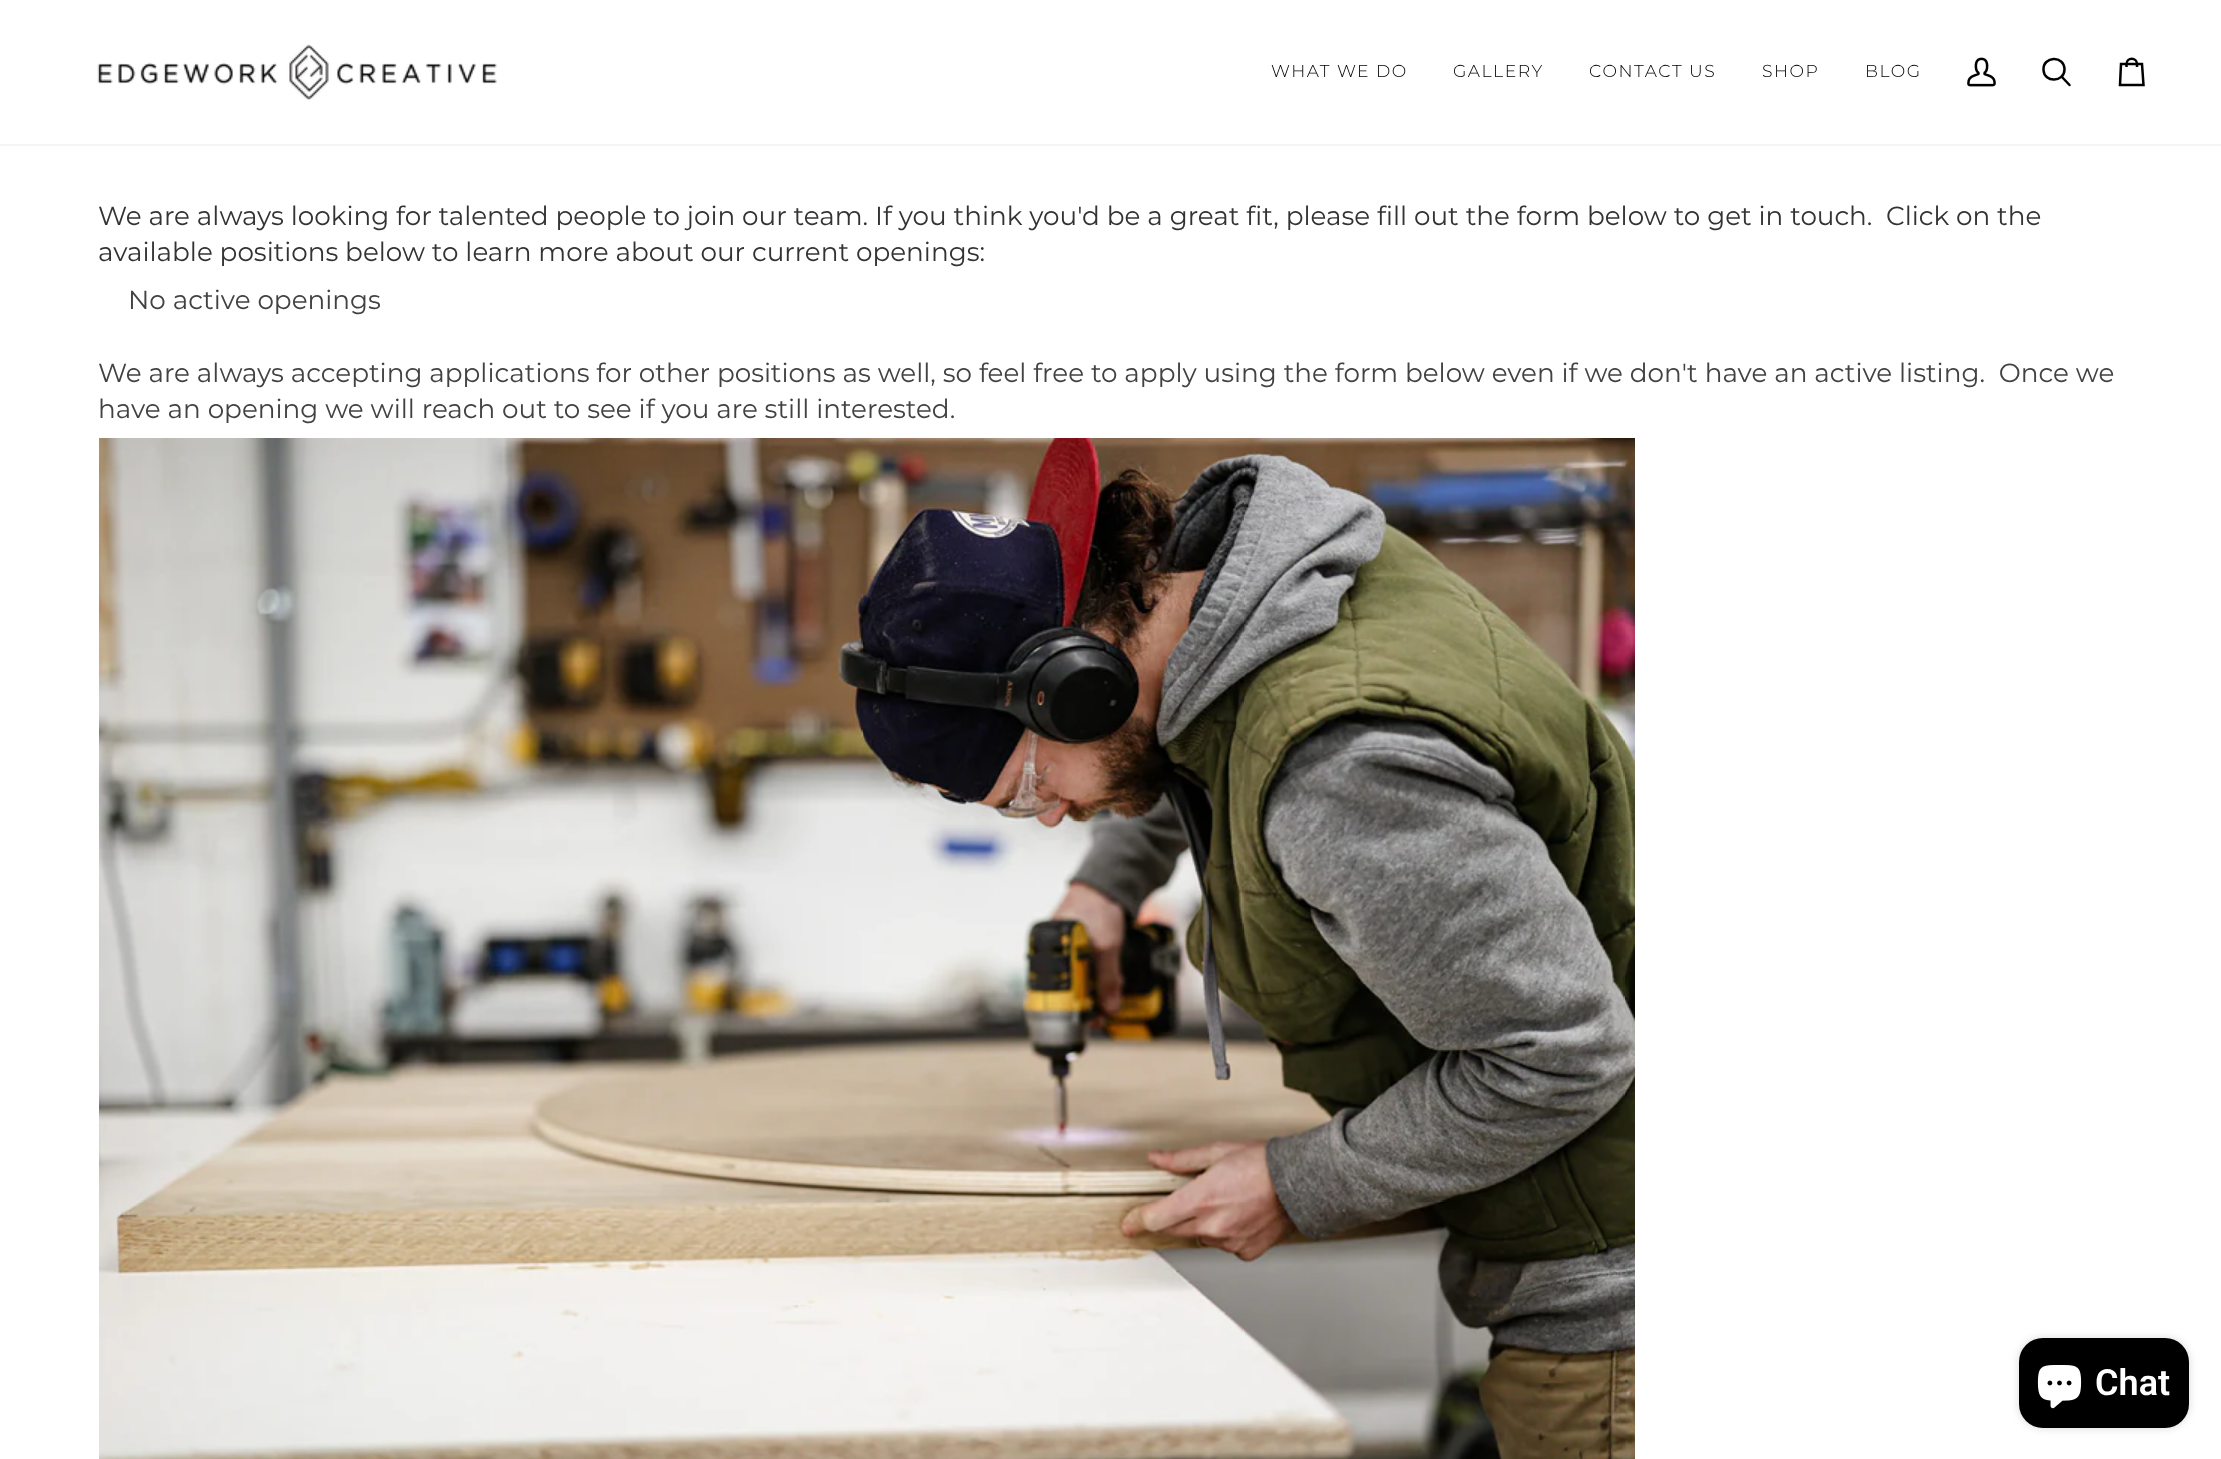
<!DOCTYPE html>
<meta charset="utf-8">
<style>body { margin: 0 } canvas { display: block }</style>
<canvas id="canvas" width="2221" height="1459"></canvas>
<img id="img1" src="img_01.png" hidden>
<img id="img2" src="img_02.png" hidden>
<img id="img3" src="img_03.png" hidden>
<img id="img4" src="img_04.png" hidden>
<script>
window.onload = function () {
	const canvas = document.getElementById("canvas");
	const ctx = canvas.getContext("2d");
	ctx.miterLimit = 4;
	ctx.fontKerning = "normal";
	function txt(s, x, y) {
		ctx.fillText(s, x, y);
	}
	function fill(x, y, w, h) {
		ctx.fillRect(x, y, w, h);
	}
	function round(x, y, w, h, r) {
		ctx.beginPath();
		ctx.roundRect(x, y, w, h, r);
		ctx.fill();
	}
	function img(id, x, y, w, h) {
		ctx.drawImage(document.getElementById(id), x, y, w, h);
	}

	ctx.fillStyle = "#FFFFFF";
	fill(0, 0, 2221, 1459);
	ctx.fillStyle = "#F7F5F4";
	fill(0, 144, 2221, 2);
	img("img1", 97, 44, 400, 56);
	img("img2", 1967, 57, 29, 30);
	ctx.beginPath();
	ctx.moveTo(2064.5, 69.5);
	ctx.bezierCurveTo(2064.5, 82.5, 2044, 83, 2043.5, 70);
	ctx.bezierCurveTo(2042.5, 56, 2064.5, 55, 2064.5, 69.5);
	ctx.closePath();
	ctx.moveTo(2069.5, 85);
	ctx.lineTo(2061.5, 76.5);
	ctx.closePath();
	ctx.strokeStyle = "#000000";
	ctx.lineWidth = 2.5;
	ctx.lineCap = "round";
	ctx.lineJoin = "round";
	ctx.stroke();
	ctx.beginPath();
	ctx.moveTo(2137, 67);
	ctx.lineTo(2137, 64);
	ctx.lineTo(2142, 64);
	ctx.lineTo(2143.5, 85);
	ctx.lineTo(2120, 85);
	ctx.lineTo(2121, 64);
	ctx.lineTo(2126.5, 64);
	ctx.bezierCurveTo(2126.5, 57, 2137, 57, 2137, 64);
	ctx.lineTo(2126.5, 64);
	ctx.lineTo(2126.5, 67);
	ctx.lineCap = "butt";
	ctx.lineJoin = "miter";
	ctx.stroke();
	img("img3", 99, 438, 1536, 1021);
	ctx.fillStyle = "rgba(0, 0, 0, 0.15)";
	ctx.filter = "blur(4px)";
	ctx.beginPath();
	ctx.roundRect(2019, 1338, 170, 90, 24);
	ctx.fill();
	ctx.filter = "none";
	ctx.fillStyle = "#000000";
	round(2019, 1338, 170, 90, 24);
	img("img4", 2037, 1365, 45, 44);
	ctx.letterSpacing = "1.5px";
	ctx.font = "300 17.25px Montserrat";
	txt("WHAT WE DO", 1271, 77);
	txt("GALLERY", 1453, 77);
	txt("CONTACT US", 1589, 77);
	txt("SHOP", 1762, 77);
	txt("BLOG", 1865, 77);
	ctx.letterSpacing = "0px";
	ctx.font = "100 26.25px Montserrat";
	ctx.fillStyle = "#333333";
	txt("We are always looking for talented people to join our team. If you think you'd be a great fit, please fill out the form below to get in touch.  Click on the", 98, 225);
	txt("available positions below to learn more about our current openings:", 98, 261);
	ctx.fillStyle = "#424242";
	txt("No active openings", 128, 309);
	txt("We are always accepting applications for other positions as well, so feel free to apply using the form below even if we don't have an active listing.  Once we", 98, 382);
	txt("have an opening we will reach out to see if you are still interested.", 98, 418);
	ctx.font = "600 36px Roboto";
	ctx.fillStyle = "#FFFFFF";
	txt("Chat", 2095, 1395);
};
</script>
